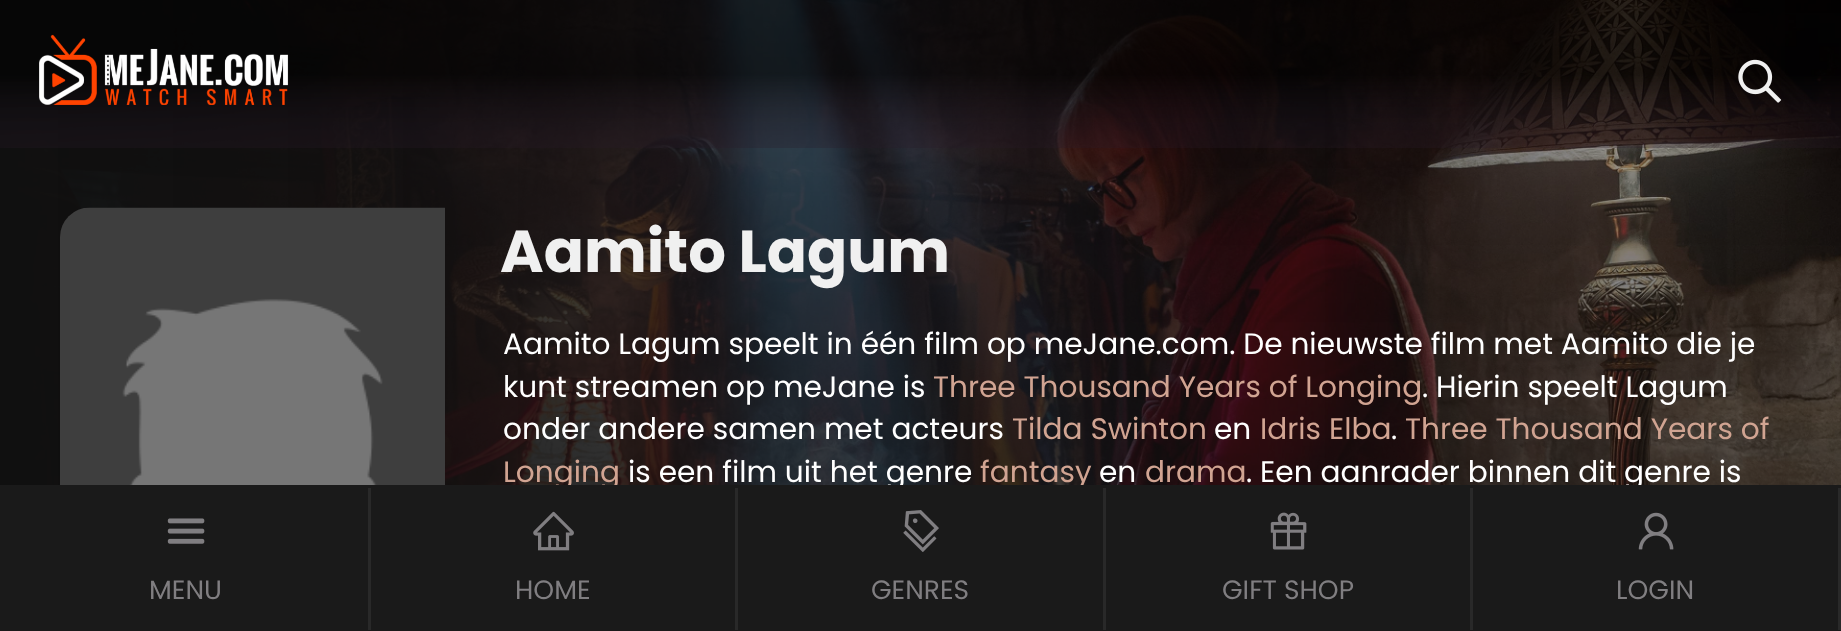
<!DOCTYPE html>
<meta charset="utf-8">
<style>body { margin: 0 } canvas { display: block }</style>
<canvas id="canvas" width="1841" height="631"></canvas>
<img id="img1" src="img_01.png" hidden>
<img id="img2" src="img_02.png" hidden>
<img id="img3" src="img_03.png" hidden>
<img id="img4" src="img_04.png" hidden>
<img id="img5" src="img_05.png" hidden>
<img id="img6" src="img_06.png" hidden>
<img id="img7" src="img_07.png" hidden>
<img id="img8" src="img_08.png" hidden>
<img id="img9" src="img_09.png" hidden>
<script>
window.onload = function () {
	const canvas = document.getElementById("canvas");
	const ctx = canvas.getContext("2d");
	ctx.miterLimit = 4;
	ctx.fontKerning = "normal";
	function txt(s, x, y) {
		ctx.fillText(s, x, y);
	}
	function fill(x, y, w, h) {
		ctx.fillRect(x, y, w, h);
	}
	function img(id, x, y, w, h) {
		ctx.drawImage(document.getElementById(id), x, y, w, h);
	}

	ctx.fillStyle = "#FFFFFF";
	fill(0, 0, 1841, 631);
	img("img1", 0, 0, 1841, 485);
	img("img2", 60, 207, 385, 278);
	img("img3", 39, 34, 250, 71);
	img("img4", 1738, 59, 44, 44);
	ctx.font = "bold 59.25px Poppins";
	ctx.fillStyle = "#F0F0F0";
	txt("Aamito Lagum", 500, 272);
	ctx.font = "29.6px Poppins";
	ctx.fillStyle = "#FFFFFF";
	txt("Aamito Lagum speelt in één film op meJane.com. De nieuwste film met Aamito die je", 503, 354);
	txt("kunt streamen op meJane is", 503, 397);
	ctx.fillStyle = "#D1A492";
	txt("Three Thousand Years of Longing", 933, 397);
	ctx.fillStyle = "#FFFFFF";
	txt(". Hierin speelt Lagum", 1422, 397);
	txt("onder andere samen met acteurs", 503, 439);
	ctx.fillStyle = "#D1A492";
	txt("Tilda Swinton", 1012, 439);
	ctx.fillStyle = "#FFFFFF";
	txt("en", 1214, 439);
	ctx.fillStyle = "#D1A492";
	txt("Idris Elba", 1260, 439);
	ctx.fillStyle = "#FFFFFF";
	txt(".", 1391, 439);
	ctx.fillStyle = "#D1A492";
	txt("Three Thousand Years of", 1405, 439);
	txt("Longing", 503, 482);
	ctx.fillStyle = "#FFFFFF";
	txt("is een film uit het genre", 628, 482);
	ctx.fillStyle = "#D1A492";
	txt("fantasy", 980, 482);
	ctx.fillStyle = "#FFFFFF";
	txt("en", 1099, 482);
	ctx.fillStyle = "#D1A492";
	txt("drama", 1145, 482);
	ctx.fillStyle = "#FFFFFF";
	txt(". Een aanrader binnen dit genre is", 1246, 482);
	ctx.fillStyle = "#1A1A1A";
	fill(0, 485, 1841, 146);
	ctx.fillStyle = "#292929";
	fill(368, 488, 3, 142);
	img("img5", 167, 518, 38, 26);
	ctx.font = "26.5px Poppins";
	ctx.fillStyle = "#807E81";
	txt("MENU", 149, 599);
	ctx.fillStyle = "#292929";
	fill(735, 488, 3, 142);
	img("img6", 533, 511, 41, 40);
	ctx.fillStyle = "#807E81";
	txt("HOME", 515, 599);
	ctx.fillStyle = "#292929";
	fill(1103, 488, 3, 142);
	img("img7", 903, 510, 36, 42);
	ctx.fillStyle = "#807E81";
	txt("GENRES", 871, 599);
	ctx.fillStyle = "#292929";
	fill(1470, 488, 3, 142);
	img("img8", 1270, 512, 37, 38);
	ctx.fillStyle = "#807E81";
	txt("GIFT SHOP", 1222, 599);
	ctx.fillStyle = "#292929";
	fill(1838, 488, 3, 142);
	img("img9", 1638, 512, 36, 38);
	ctx.fillStyle = "#807E81";
	txt("LOGIN", 1616, 599);
};
</script>
